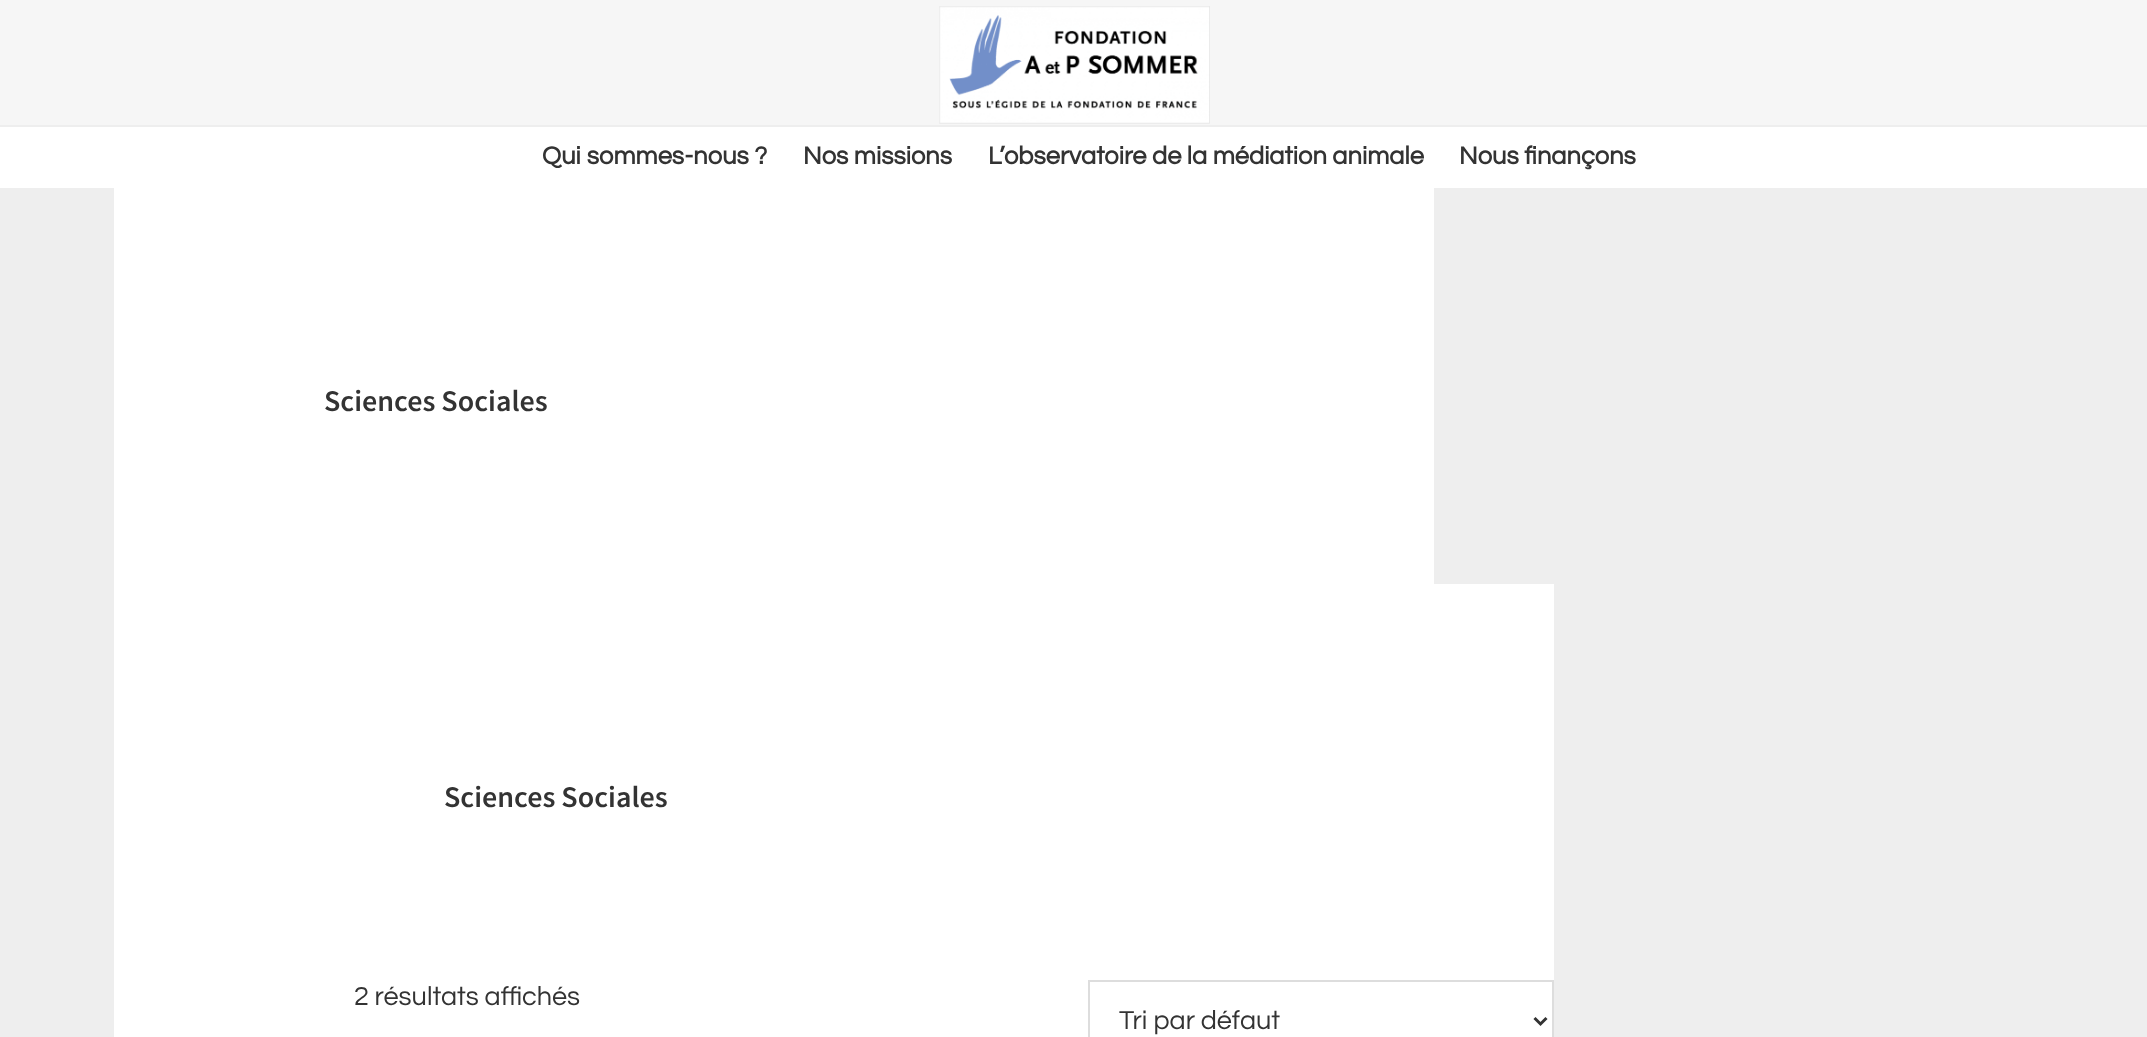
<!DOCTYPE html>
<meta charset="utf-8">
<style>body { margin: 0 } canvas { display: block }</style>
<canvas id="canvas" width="2147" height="1037"></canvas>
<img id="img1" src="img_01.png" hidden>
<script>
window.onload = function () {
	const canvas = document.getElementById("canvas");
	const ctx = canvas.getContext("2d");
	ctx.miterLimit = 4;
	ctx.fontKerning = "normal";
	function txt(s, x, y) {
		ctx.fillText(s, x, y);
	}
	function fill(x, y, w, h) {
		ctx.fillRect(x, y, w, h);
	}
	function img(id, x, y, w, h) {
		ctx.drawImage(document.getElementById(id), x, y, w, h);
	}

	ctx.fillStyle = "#EEEEEE";
	fill(0, 0, 2147, 1037);
	ctx.fillStyle = "#F6F6F6";
	fill(0, 0, 2147, 125);
	img("img1", 939, 6, 271, 118);
	ctx.fillStyle = "#FFFFFF";
	fill(0, 127, 2147, 61);
	fill(114, 188, 1320, 849);
	fill(1434, 584, 120, 453);
	ctx.strokeStyle = "#DDDDDD";
	ctx.lineWidth = 2;
	ctx.strokeRect(1089, 981, 464, 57);
	ctx.beginPath();
	ctx.moveTo(1534.5, 1018);
	ctx.lineTo(1540.5, 1024);
	ctx.lineTo(1546.5, 1018);
	ctx.strokeStyle = "#333333";
	ctx.lineWidth = 3;
	ctx.stroke();
	ctx.font = "bold 25.5px Questrial";
	ctx.fillStyle = "#333333";
	txt("Qui sommes-nous ?", 542, 164);
	txt("Nos missions", 803, 164);
	txt("L’observatoire de la médiation animale", 988, 164);
	txt("Nous finançons", 1459, 164);
	ctx.font = "600 30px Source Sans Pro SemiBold";
	txt("Sciences Sociales", 324, 411);
	txt("Sciences Sociales", 444, 807);
	ctx.font = "27px Questrial";
	txt("2 résultats affichés", 354, 1005);
	txt("Tri par défaut", 1119, 1029);
};
</script>
